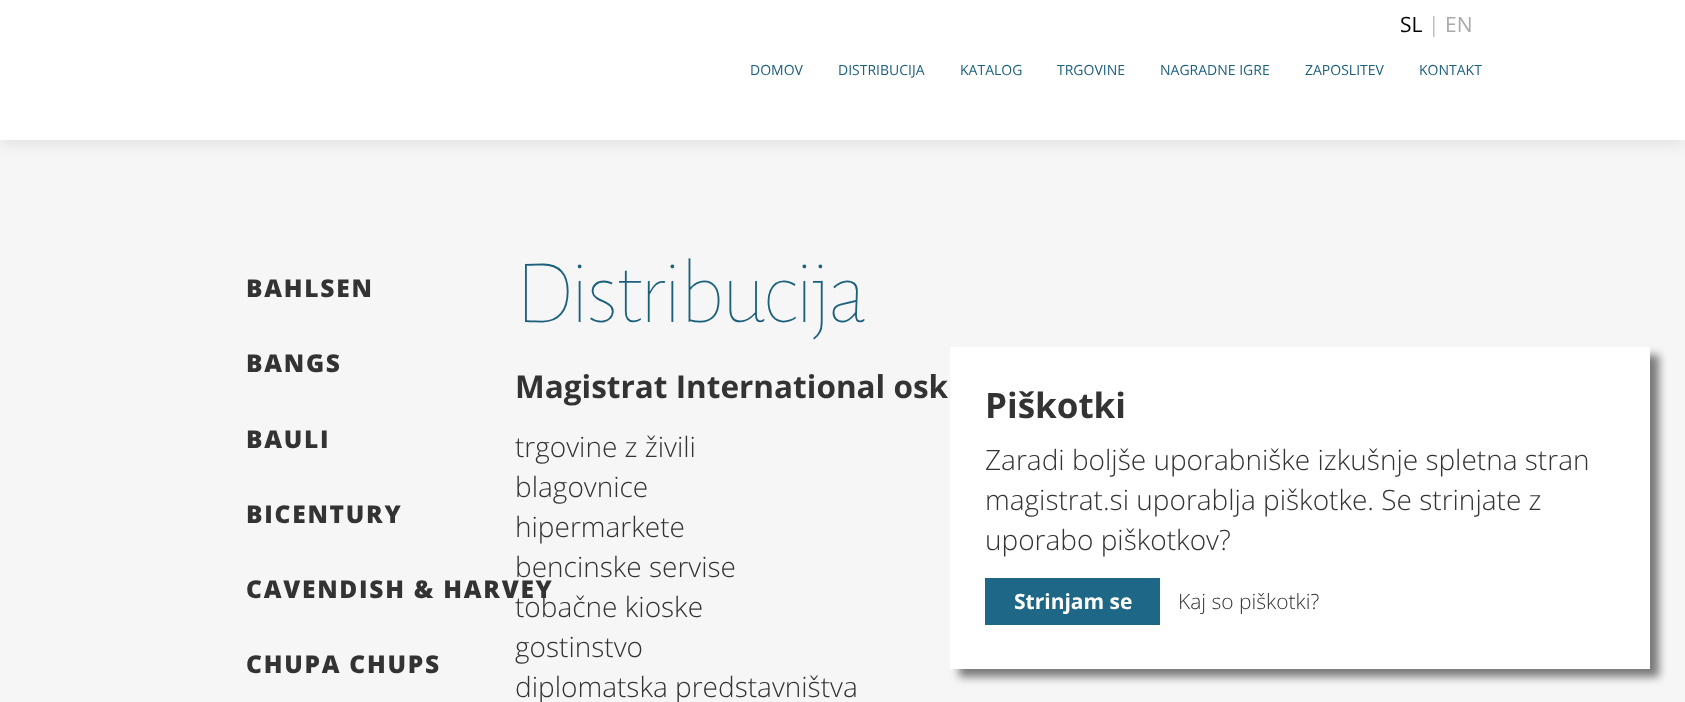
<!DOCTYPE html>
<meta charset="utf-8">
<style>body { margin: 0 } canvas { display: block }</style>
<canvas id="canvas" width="1685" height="702"></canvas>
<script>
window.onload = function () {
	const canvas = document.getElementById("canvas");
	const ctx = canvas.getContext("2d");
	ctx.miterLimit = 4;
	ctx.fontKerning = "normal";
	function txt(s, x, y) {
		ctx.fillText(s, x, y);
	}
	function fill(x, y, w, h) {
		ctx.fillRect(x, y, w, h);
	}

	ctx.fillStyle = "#F6F6F6";
	fill(0, 0, 1685, 702);
	ctx.fillStyle = "rgba(0, 0, 0, 0.1)";
	ctx.filter = "blur(9px)";
	ctx.beginPath();
	ctx.rect(0, 2, 1685, 140);
	ctx.fill();
	ctx.filter = "none";
	ctx.fillStyle = "#FFFFFF";
	fill(0, 0, 1685, 140);
	ctx.fillStyle = "rgba(0, 0, 0, 0.5)";
	ctx.filter = "blur(4.5px)";
	ctx.beginPath();
	ctx.rect(959, 355, 700, 322);
	ctx.fill();
	ctx.filter = "none";
	ctx.fillStyle = "#FFFFFF";
	fill(950, 347, 700, 322);
	ctx.fillStyle = "#1E6787";
	fill(985, 578, 175, 47);
	ctx.font = "21px Open Sans";
	ctx.fillStyle = "#000000";
	txt("SL", 1400, 32);
	ctx.fillStyle = "#BBBBBB";
	txt("|", 1428, 32);
	ctx.fillStyle = "#AAAAAA";
	txt("EN", 1445, 32);
	ctx.font = "14px Open Sans";
	ctx.fillStyle = "#1C607D";
	txt("DOMOV", 750, 75);
	txt("DISTRIBUCIJA", 838, 75);
	txt("KATALOG", 960, 75);
	txt("TRGOVINE", 1057, 75);
	txt("NAGRADNE IGRE", 1160, 75);
	txt("ZAPOSLITEV", 1305, 75);
	txt("KONTAKT", 1419, 75);
	ctx.letterSpacing = "1.75px";
	ctx.font = "800 24.5px Open Sans";
	ctx.fillStyle = "#333333";
	txt("BAHLSEN", 246, 297);
	txt("BANGS", 246, 372);
	txt("BAULI", 246, 448);
	txt("BICENTURY", 246, 523);
	txt("CAVENDISH & HARVEY", 246, 598);
	txt("CHUPA CHUPS", 246, 673);
	ctx.letterSpacing = "-3.5px";
	ctx.font = "100 91px Alegreya Sans";
	ctx.fillStyle = "#1C607D";
	txt("Distribucija", 515, 322);
	ctx.letterSpacing = "0px";
	ctx.font = "bold 31.5px Open Sans";
	ctx.fillStyle = "#333333";
	txt("Magistrat International osk", 515, 398);
	ctx.font = "300 28px Open Sans";
	txt("trgovine z živili", 515, 457);
	txt("blagovnice", 515, 497);
	txt("hipermarkete", 515, 537);
	txt("bencinske servise", 515, 577);
	txt("tobačne kioske", 515, 617);
	txt("gostinstvo", 515, 657);
	txt("diplomatska predstavništva", 515, 697);
	ctx.font = "bold 35px Open Sans";
	txt("Piškotki", 985, 418);
	ctx.font = "300 28px Open Sans";
	txt("Zaradi boljše uporabniške izkušnje spletna stran", 985, 470);
	txt("magistrat.si uporablja piškotke. Se strinjate z", 985, 510);
	txt("uporabo piškotkov?", 985, 550);
	ctx.font = "bold 21px Open Sans";
	ctx.fillStyle = "#FFFFFF";
	txt("Strinjam se", 1014, 609);
	ctx.font = "300 21px Open Sans";
	ctx.fillStyle = "#333333";
	txt("Kaj so piškotki?", 1178, 609);
};
</script>
